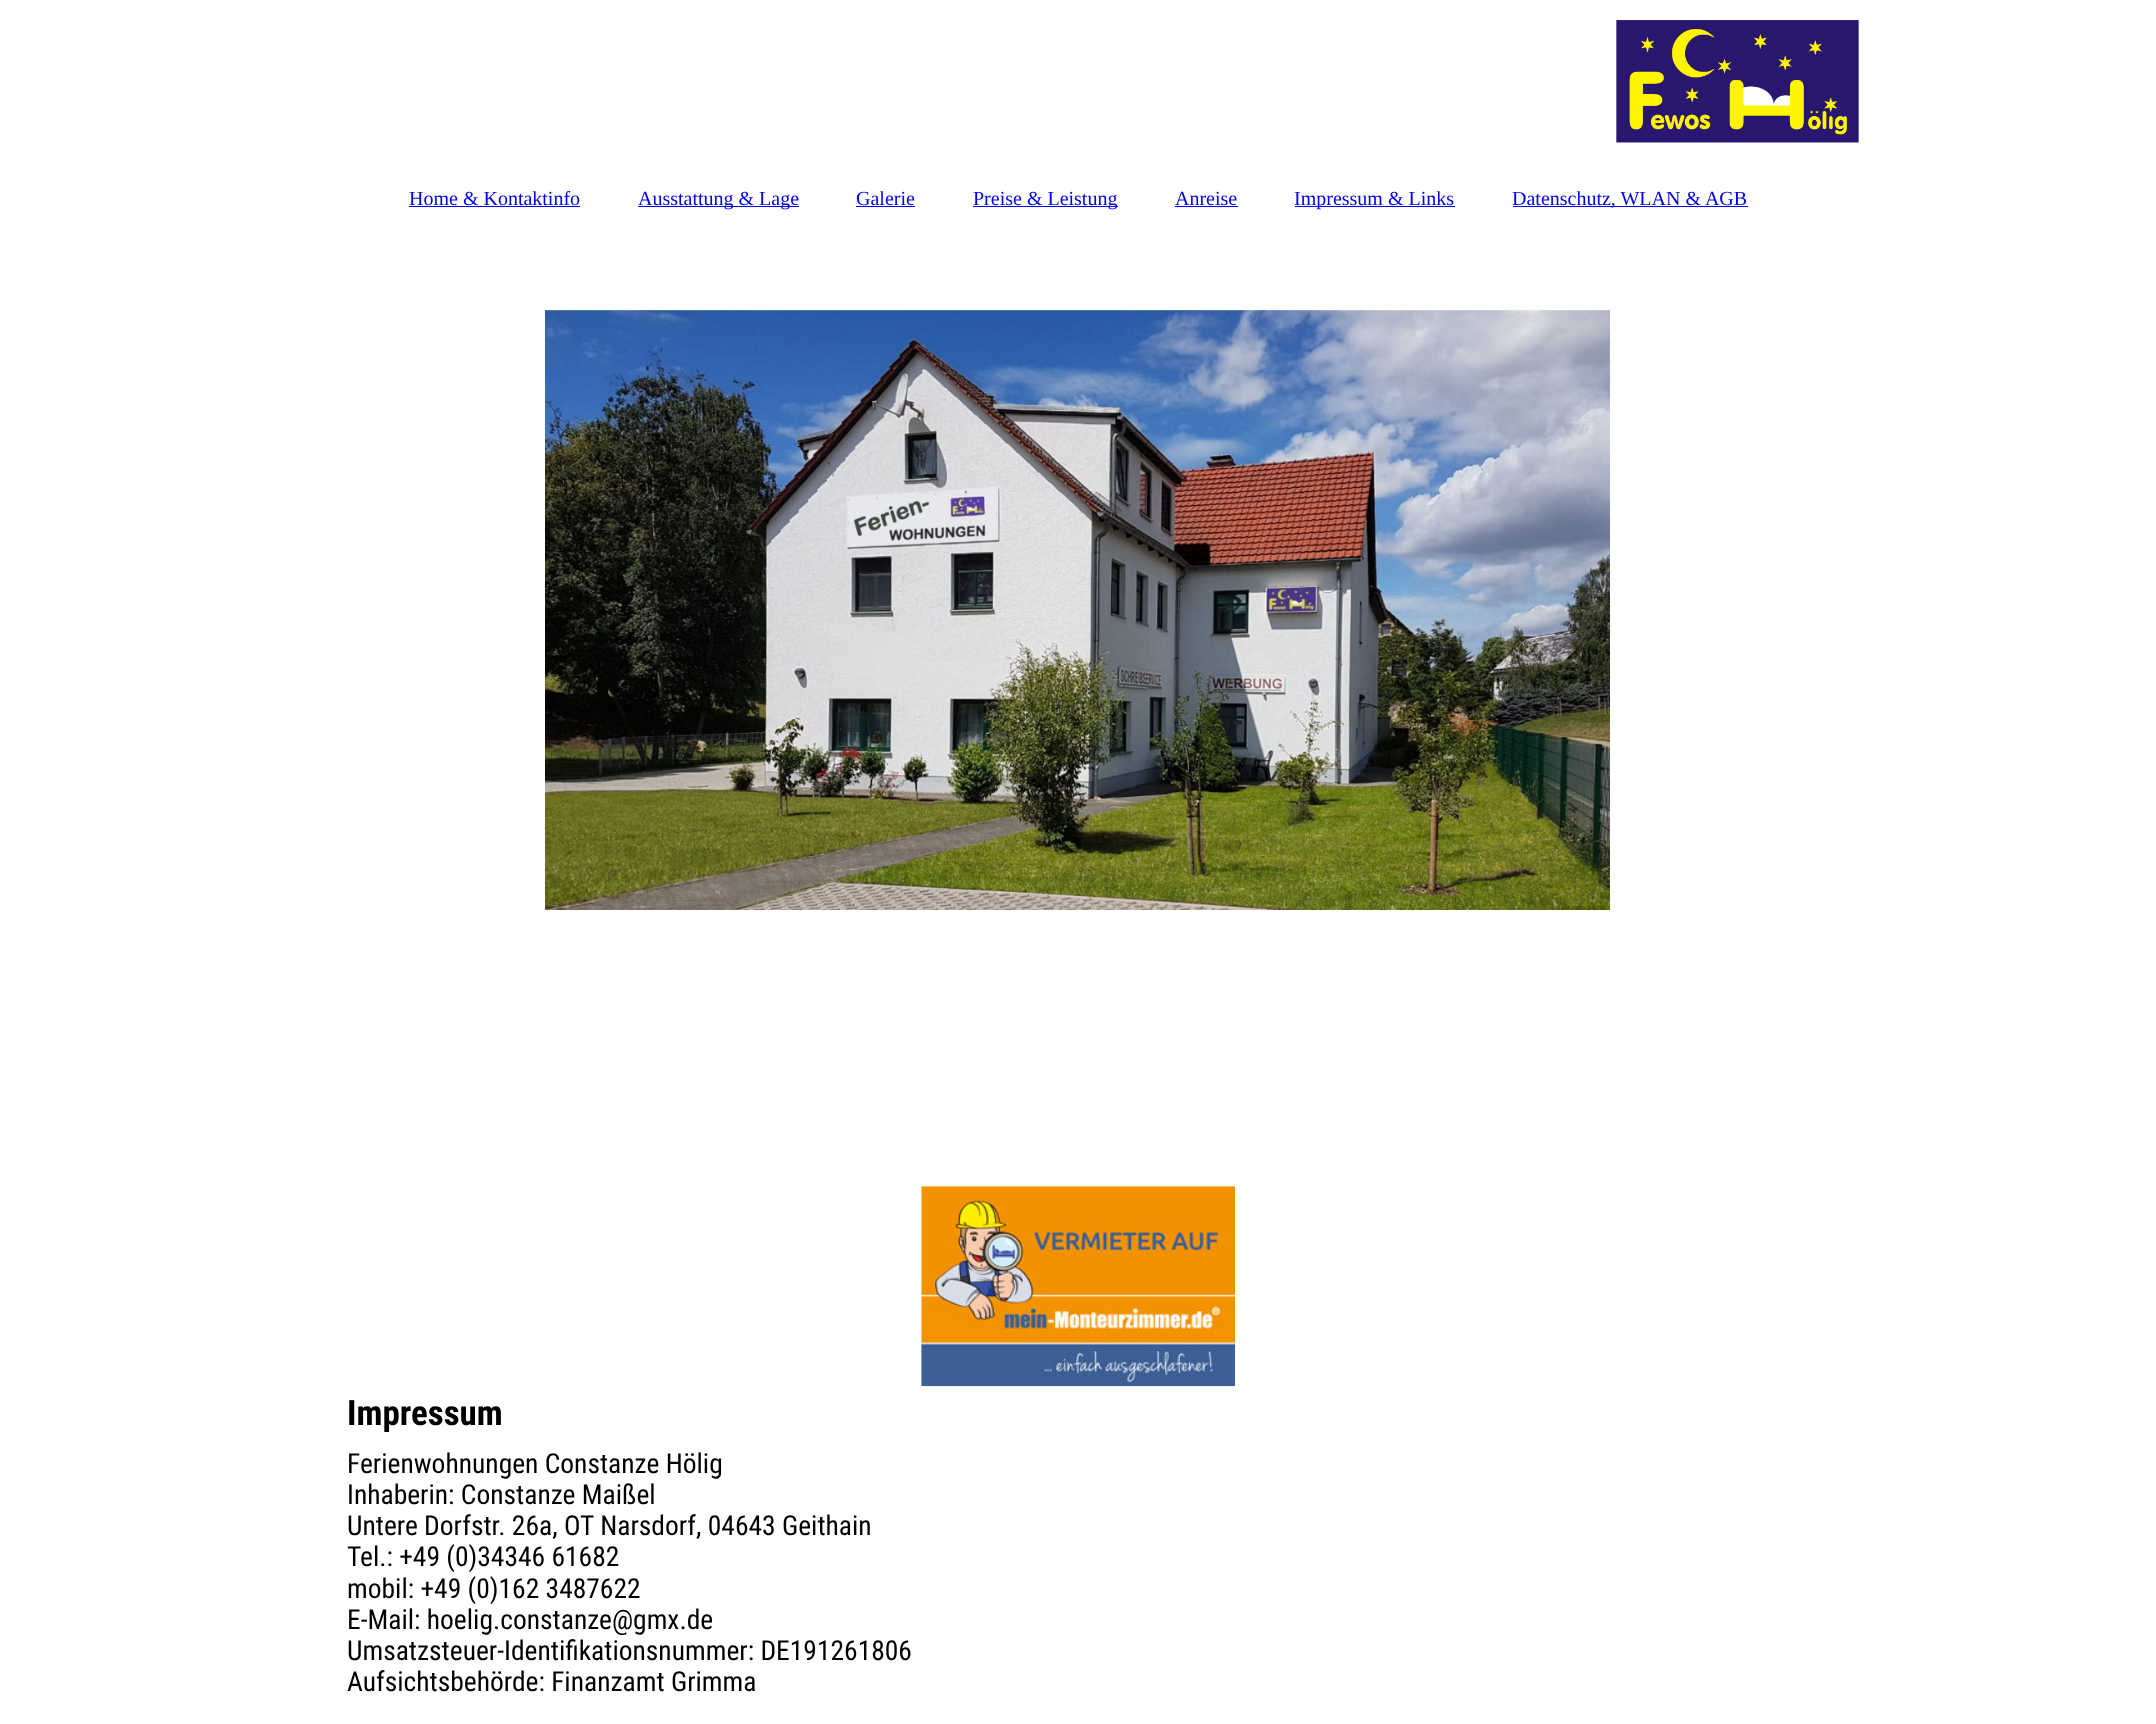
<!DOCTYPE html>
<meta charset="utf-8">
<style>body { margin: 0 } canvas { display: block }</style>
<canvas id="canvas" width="2156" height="1724"></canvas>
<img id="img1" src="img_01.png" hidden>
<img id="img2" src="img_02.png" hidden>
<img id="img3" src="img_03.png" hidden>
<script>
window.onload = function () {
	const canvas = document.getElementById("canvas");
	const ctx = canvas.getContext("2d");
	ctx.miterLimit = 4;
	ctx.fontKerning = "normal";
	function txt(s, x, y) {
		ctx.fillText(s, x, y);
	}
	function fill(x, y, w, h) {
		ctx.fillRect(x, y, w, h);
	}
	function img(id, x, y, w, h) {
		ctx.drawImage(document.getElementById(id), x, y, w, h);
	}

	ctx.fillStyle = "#FFFFFF";
	fill(0, 0, 2156, 1724);
	img("img1", 1616, 20, 243, 123);
	ctx.fillStyle = "#0000EE";
	fill(409, 206, 171, 1);
	fill(638, 206, 161, 1);
	fill(856, 206, 59, 1);
	fill(973, 206, 145, 1);
	fill(1175, 206, 63, 1);
	fill(1295, 206, 160, 1);
	fill(1513, 206, 235, 1);
	img("img2", 545, 310, 1065, 600);
	img("img3", 921, 1186, 314, 201);
	ctx.font = "20px Liberation Serif";
	txt("Home & Kontaktinfo", 409, 205);
	txt("Ausstattung & Lage", 638, 205);
	txt("Galerie", 856, 205);
	txt("Preise & Leistung", 973, 205);
	txt("Anreise", 1175, 205);
	txt("Impressum & Links", 1294, 205);
	txt("Datenschutz, WLAN & AGB", 1512, 205);
	ctx.font = "bold 35px Roboto Condensed";
	ctx.fillStyle = "#000000";
	txt("Impressum", 347, 1425);
	ctx.font = "27.5px Roboto Condensed";
	txt("Ferienwohnungen Constanze Hölig", 347, 1473);
	txt("Inhaberin: Constanze Maißel", 347, 1504);
	txt("Untere Dorfstr. 26a, OT Narsdorf, 04643 Geithain", 347, 1535);
	txt("Tel.: +49 (0)34346 61682", 347, 1566);
	txt("mobil: +49 (0)162 3487622", 347, 1598);
	txt("E-Mail: hoelig.constanze@gmx.de", 347, 1629);
	txt("Umsatzsteuer-Identifikationsnummer: DE191261806", 347, 1660);
	txt("Aufsichtsbehörde: Finanzamt Grimma", 347, 1691);
};
</script>
